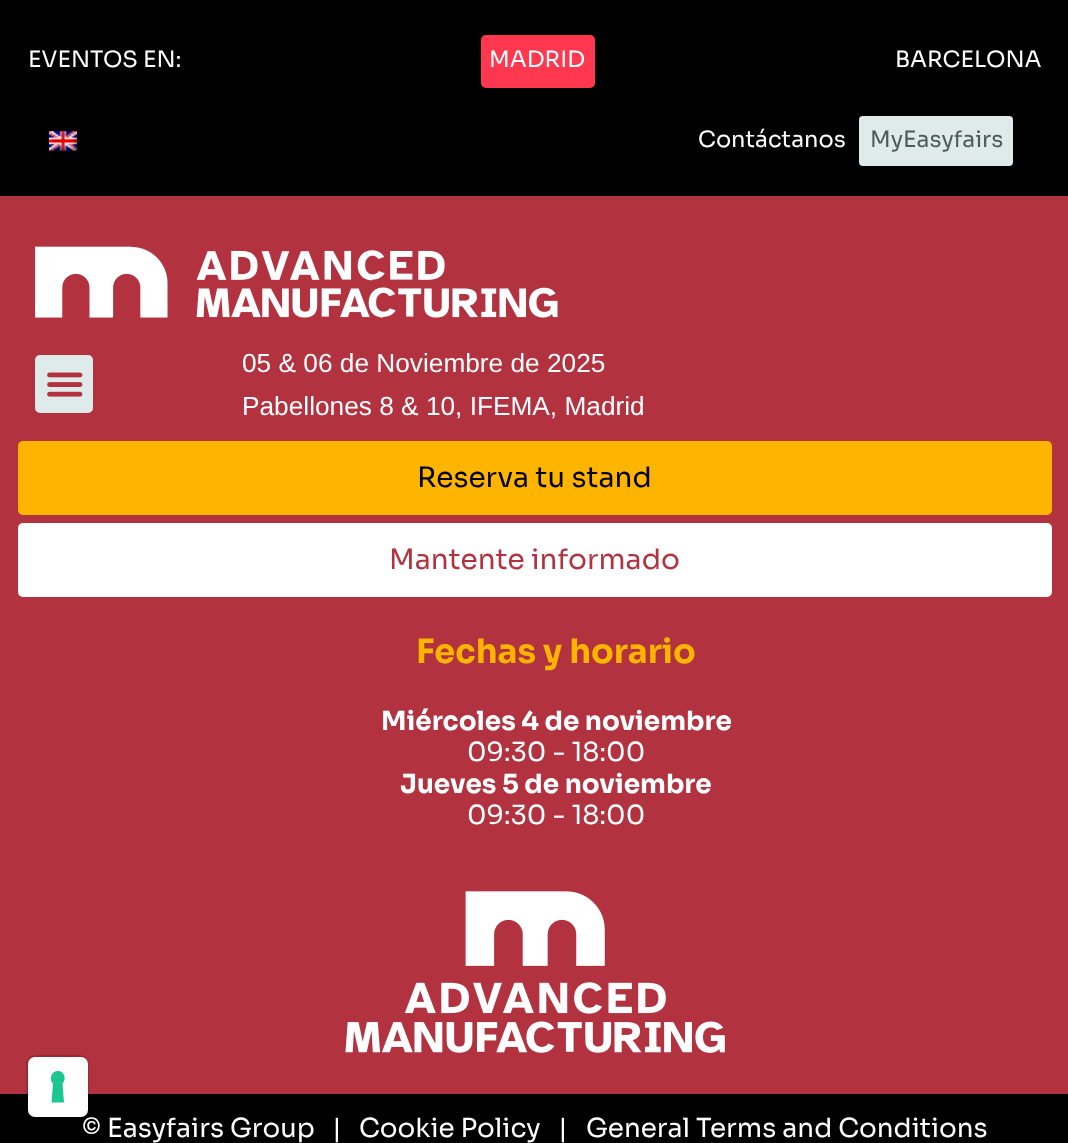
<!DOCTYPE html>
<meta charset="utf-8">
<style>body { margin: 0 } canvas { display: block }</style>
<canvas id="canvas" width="1068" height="1143"></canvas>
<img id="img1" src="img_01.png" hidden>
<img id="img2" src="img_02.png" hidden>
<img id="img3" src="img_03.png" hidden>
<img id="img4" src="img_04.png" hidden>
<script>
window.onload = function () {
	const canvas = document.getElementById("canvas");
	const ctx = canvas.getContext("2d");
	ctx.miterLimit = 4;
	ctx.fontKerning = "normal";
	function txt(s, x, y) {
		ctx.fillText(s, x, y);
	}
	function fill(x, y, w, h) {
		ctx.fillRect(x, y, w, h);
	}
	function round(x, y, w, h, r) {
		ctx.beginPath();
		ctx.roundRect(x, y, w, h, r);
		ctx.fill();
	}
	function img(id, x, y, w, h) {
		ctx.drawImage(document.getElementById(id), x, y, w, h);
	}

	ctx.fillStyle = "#000000";
	fill(0, 0, 1068, 1143);
	ctx.fillStyle = "#FF384F";
	round(481, 35, 114, 53, 5);
	img("img1", 49, 131, 28, 20);
	ctx.fillStyle = "#DFEAEA";
	round(859, 116, 154, 50, 4);
	ctx.fillStyle = "#B2323F";
	fill(0, 196, 1068, 898);
	img("img2", 35, 246, 523, 72);
	ctx.fillStyle = "#DFEAEA";
	round(35, 355, 58, 58, 5);
	img("img3", 47, 372, 36, 25);
	ctx.fillStyle = "#FFB500";
	round(18, 441, 1034, 74, 5);
	ctx.fillStyle = "#FFFFFF";
	round(18, 523, 1034, 74, 5);
	img("img4", 345, 891, 380, 162);
	ctx.font = "22.5px Sora";
	txt("EVENTOS EN:", 28, 67);
	txt("MADRID", 489, 67);
	txt("BARCELONA", 895, 67);
	txt("Contáctanos", 698, 147);
	ctx.fillStyle = "#4A5C57";
	txt("MyEasyfairs", 870, 147);
	ctx.font = "26.25px Liberation Sans";
	ctx.fillStyle = "#FFFFFF";
	txt("05 & 06 de Noviembre de 2025", 242, 372);
	txt("Pabellones 8 & 10, IFEMA, Madrid", 242, 415);
	ctx.font = "28px Sora";
	ctx.fillStyle = "#000000";
	txt("Reserva tu stand", 417, 487);
	ctx.fillStyle = "#B2323F";
	txt("Mantente informado", 389, 569);
	ctx.font = "bold 33.5px Sora";
	ctx.fillStyle = "#FFB500";
	txt("Fechas y horario", 416, 663);
	ctx.font = "bold 26.25px Sora";
	ctx.fillStyle = "#FFFFFF";
	txt("Miércoles 4 de noviembre", 381, 730);
	ctx.font = "26.25px Sora";
	txt("09:30 - 18:00", 467, 761);
	ctx.font = "bold 26.25px Sora";
	txt("Jueves 5 de noviembre", 400, 793);
	ctx.font = "26.25px Sora";
	txt("09:30 - 18:00", 467, 824);
	txt("© Easyfairs Group", 82, 1137);
	ctx.beginPath();
	ctx.roundRect(27, 1056, 61, 61, 8);
	ctx.strokeStyle = "rgba(0, 0, 0, 0.15)";
	ctx.lineWidth = 2;
	ctx.stroke();
	round(28, 1057, 60, 60, 7);
	ctx.fillStyle = "#1CC691";
	ctx.beginPath();
	ctx.moveTo(58, 1071);
	ctx.bezierCurveTo(64, 1071, 67, 1079, 62.5, 1083.5);
	ctx.lineTo(64, 1102.5);
	ctx.lineTo(51.5, 1102.5);
	ctx.lineTo(53, 1083.5);
	ctx.bezierCurveTo(48.5, 1079, 51.5, 1071, 58, 1071);
	ctx.closePath();
	ctx.fill("evenodd");
	ctx.fillStyle = "#FFFFFF";
	txt("|", 332, 1137);
	txt("Cookie Policy", 359, 1137);
	txt("|", 558, 1137);
	txt("General Terms and Conditions", 586, 1137);
};
</script>
